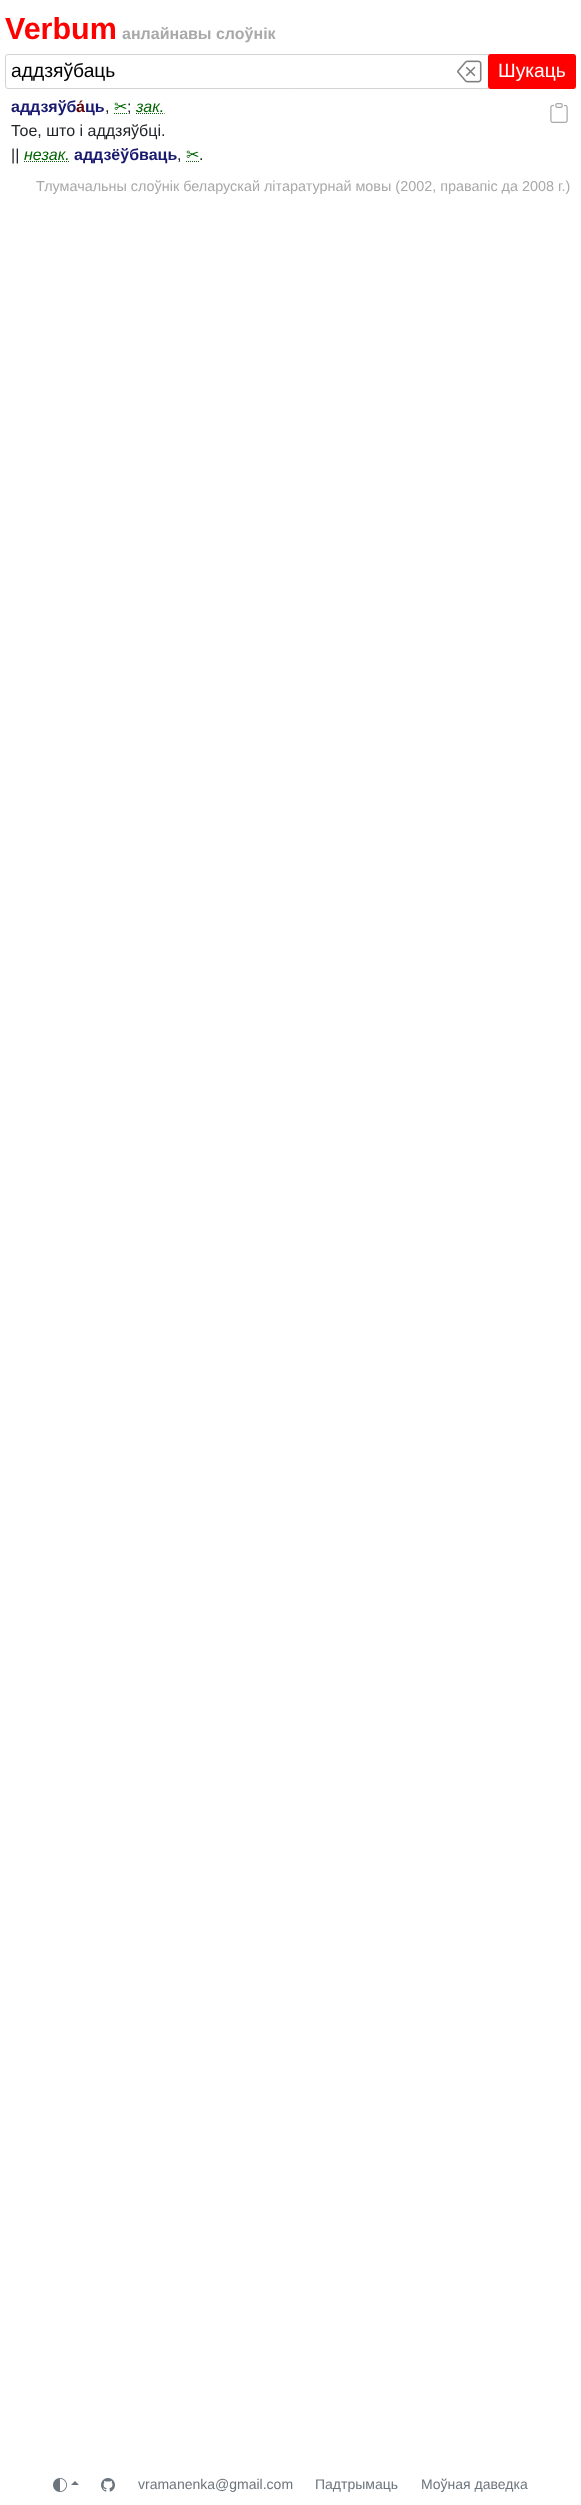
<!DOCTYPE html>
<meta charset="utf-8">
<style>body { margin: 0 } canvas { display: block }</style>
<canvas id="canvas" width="581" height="2505"></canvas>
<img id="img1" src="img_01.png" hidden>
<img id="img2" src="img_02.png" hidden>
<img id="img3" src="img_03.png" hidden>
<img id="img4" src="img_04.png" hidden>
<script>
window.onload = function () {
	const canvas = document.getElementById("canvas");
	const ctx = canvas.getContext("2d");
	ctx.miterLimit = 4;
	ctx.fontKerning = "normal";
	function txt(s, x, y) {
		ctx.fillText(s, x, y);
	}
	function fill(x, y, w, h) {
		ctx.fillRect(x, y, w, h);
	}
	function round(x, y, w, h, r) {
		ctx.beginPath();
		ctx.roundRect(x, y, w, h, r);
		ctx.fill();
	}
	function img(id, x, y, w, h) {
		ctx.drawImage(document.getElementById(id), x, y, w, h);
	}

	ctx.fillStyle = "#FFFFFF";
	fill(0, 0, 581, 2505);
	ctx.beginPath();
	ctx.roundRect(5.5, 54.5, 570, 34, 2.5);
	ctx.strokeStyle = "#D3D3D3";
	ctx.stroke();
	img("img1", 457, 60, 25, 23);
	ctx.fillStyle = "#FF0000";
	round(488, 54, 88, 35, 3);
	ctx.beginPath();
	ctx.moveTo(114, 113.5);
	ctx.lineTo(127.5, 113.5);
	ctx.strokeStyle = "#006400";
	ctx.setLineDash([1, 1]);
	ctx.stroke();
	ctx.beginPath();
	ctx.moveTo(136, 113.5);
	ctx.lineTo(164.5, 113.5);
	ctx.stroke();
	ctx.beginPath();
	ctx.moveTo(24, 161.5);
	ctx.lineTo(69.5, 161.5);
	ctx.stroke();
	ctx.beginPath();
	ctx.moveTo(186, 161.5);
	ctx.lineTo(199.5, 161.5);
	ctx.stroke();
	img("img2", 550, 103, 18, 20);
	img("img3", 53, 2478, 14, 14);
	ctx.fillStyle = "#6C757D";
	ctx.beginPath();
	ctx.moveTo(79, 2485);
	ctx.lineTo(71, 2485);
	ctx.lineTo(75, 2481);
	ctx.closePath();
	ctx.fill();
	img("img4", 101, 2478, 14, 14);
	ctx.font = "bold 30.5px Liberation Sans";
	ctx.fillStyle = "#FF0000";
	txt("Verbum", 5, 39);
	ctx.font = "bold 16px Liberation Sans";
	ctx.fillStyle = "#A9A9A9";
	txt("анлайнавы слоўнік", 122, 39);
	ctx.font = "19.25px Liberation Sans";
	ctx.fillStyle = "#000000";
	txt("аддзяўбаць", 11, 77);
	ctx.fillStyle = "#FFFFFF";
	txt("Шукаць", 498, 77);
	ctx.font = "bold 16px Liberation Sans";
	ctx.fillStyle = "#191970";
	txt("аддзяўб", 11, 112);
	ctx.fillStyle = "#660000";
	txt("а́", 76, 112);
	ctx.fillStyle = "#191970";
	txt("ць", 85, 112);
	ctx.font = "16px Liberation Sans";
	ctx.fillStyle = "#212529";
	txt(",", 105, 112);
	ctx.font = "16px DejaVu Sans";
	ctx.fillStyle = "#006400";
	txt("✂", 114, 112);
	ctx.font = "16px Liberation Sans";
	ctx.fillStyle = "#212529";
	txt(";", 127, 112);
	ctx.font = "italic 16px Liberation Sans";
	ctx.fillStyle = "#006400";
	txt("зак.", 136, 112);
	ctx.font = "16px Liberation Sans";
	ctx.fillStyle = "#212529";
	txt("Тое, што і аддзяўбці.", 11, 136);
	txt("||", 11, 160);
	ctx.font = "italic 16px Liberation Sans";
	ctx.fillStyle = "#006400";
	txt("незак.", 24, 160);
	ctx.font = "bold 16px Liberation Sans";
	ctx.fillStyle = "#191970";
	txt("аддзёўбваць", 74, 160);
	ctx.font = "16px Liberation Sans";
	ctx.fillStyle = "#212529";
	txt(",", 177, 160);
	ctx.font = "16px DejaVu Sans";
	ctx.fillStyle = "#006400";
	txt("✂", 186, 160);
	ctx.font = "16px Liberation Sans";
	ctx.fillStyle = "#212529";
	txt(".", 199, 160);
	ctx.font = "14.4px Liberation Sans";
	ctx.fillStyle = "#A9A9A9";
	txt("Тлумачальны слоўнік беларускай літаратурнай мовы (2002, правапіс да 2008 г.)", 36, 191);
	ctx.font = "14px Liberation Sans";
	ctx.fillStyle = "#6C757D";
	txt("vramanenka@gmail.com", 138, 2489);
	txt("Падтрымаць", 315, 2489);
	txt("Моўная даведка", 421, 2489);
};
</script>
